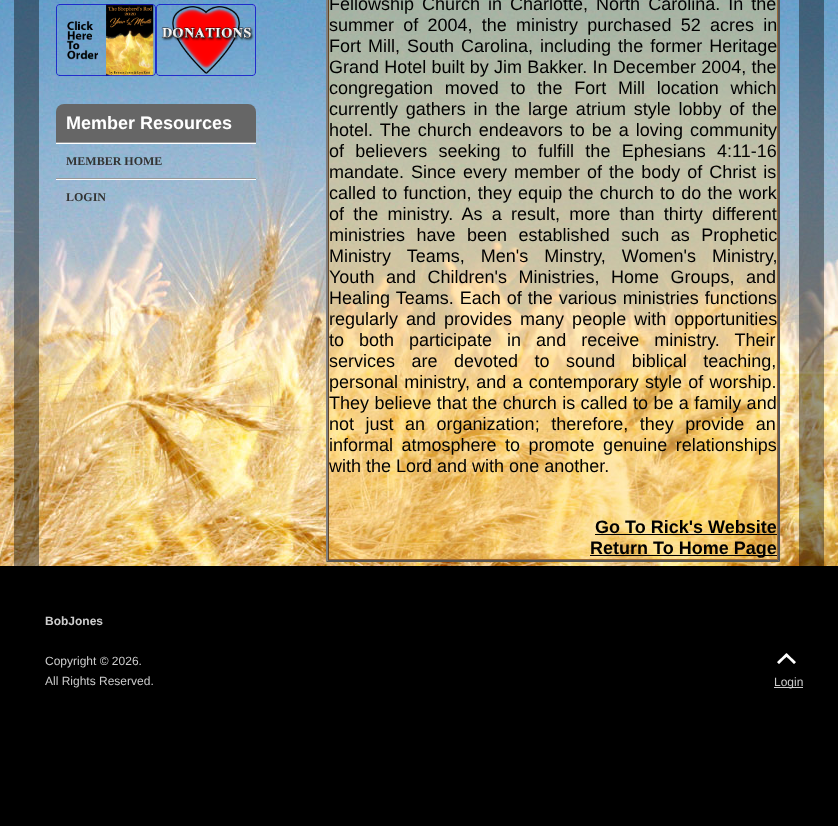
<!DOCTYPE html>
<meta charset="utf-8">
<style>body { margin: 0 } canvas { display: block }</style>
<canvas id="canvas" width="838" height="826"></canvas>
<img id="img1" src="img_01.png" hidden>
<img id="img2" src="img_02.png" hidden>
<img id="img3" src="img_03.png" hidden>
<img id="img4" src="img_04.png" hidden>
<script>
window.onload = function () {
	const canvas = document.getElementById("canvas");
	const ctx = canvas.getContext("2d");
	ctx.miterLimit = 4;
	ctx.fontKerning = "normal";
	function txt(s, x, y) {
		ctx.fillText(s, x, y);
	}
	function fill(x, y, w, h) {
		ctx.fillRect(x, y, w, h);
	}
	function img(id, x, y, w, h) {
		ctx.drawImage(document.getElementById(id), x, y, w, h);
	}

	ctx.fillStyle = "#FFFFFF";
	fill(0, 0, 838, 826);
	img("img1", 0, 0, 838, 566);
	ctx.fillStyle = "#000000";
	fill(0, 566, 838, 260);
	ctx.save();
	ctx.beginPath();
	ctx.rect(0, 0, 838, 566);
	ctx.clip();
	ctx.beginPath();
	ctx.moveTo(54, -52.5);
	ctx.lineTo(784, -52.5);
	ctx.bezierCurveTo(799, -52.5, 811.5, -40, 811.5, -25);
	ctx.lineTo(811.5, 578.5);
	ctx.lineTo(26.5, 578.5);
	ctx.lineTo(26.5, -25);
	ctx.bezierCurveTo(26.5, -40, 39, -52.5, 54, -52.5);
	ctx.closePath();
	ctx.strokeStyle = "rgba(1, 1, 1, 0.4)";
	ctx.lineWidth = 25;
	ctx.stroke();
	ctx.restore();
	img("img2", 56, 4, 100, 72);
	img("img3", 156, 4, 100, 72);
	ctx.fillStyle = "#666666";
	ctx.beginPath();
	ctx.roundRect(56, 104, 200, 38, [8, 8, 0, 0]);
	ctx.fill();
	ctx.fillStyle = "#999999";
	fill(56, 142, 200, 1);
	ctx.fillStyle = "#FFFFFF";
	fill(56, 143, 200, 1);
	ctx.fillStyle = "#999999";
	fill(56, 178, 200, 1);
	ctx.fillStyle = "#FFFFFF";
	fill(56, 179, 200, 1);
	ctx.fillStyle = "#555555";
	ctx.beginPath();
	ctx.moveTo(780, -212);
	ctx.lineTo(780, 562);
	ctx.lineTo(778, 560);
	ctx.lineTo(778, -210);
	ctx.closePath();
	ctx.fill();
	ctx.beginPath();
	ctx.moveTo(780, 562);
	ctx.lineTo(326, 562);
	ctx.lineTo(328, 560);
	ctx.lineTo(778, 560);
	ctx.closePath();
	ctx.fill();
	ctx.fillStyle = "#808080";
	ctx.beginPath();
	ctx.moveTo(326, 562);
	ctx.lineTo(326, -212);
	ctx.lineTo(328, -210);
	ctx.lineTo(328, 560);
	ctx.closePath();
	ctx.fill();
	ctx.fillStyle = "rgba(255, 204, 102, 0.4)";
	fill(329, 0, 448, 559);
	ctx.fillStyle = "#996633";
	fill(777, 0, 1, 560);
	fill(328, 559, 450, 1);
	ctx.fillStyle = "#664422";
	fill(328, 0, 1, 560);
	ctx.fillStyle = "#000000";
	fill(595, 534, 182, 1);
	fill(590, 555, 187, 1);
	img("img4", 777, 653, 19, 11);
	ctx.fillStyle = "#CCCCCC";
	fill(774, 687, 29, 1);
	ctx.font = "bold 18px Liberation Sans";
	ctx.fillStyle = "#FFFFFF";
	txt("Member Resources", 66, 129);
	ctx.font = "bold 12px Liberation Serif";
	ctx.fillStyle = "#333333";
	txt("MEMBER HOME", 66, 165);
	txt("LOGIN", 66, 201);
	ctx.wordSpacing = "3px";
	ctx.font = "18px Liberation Sans";
	ctx.fillStyle = "#000000";
	txt("Fellowship Church in Charlotte, North Carolina. In the", 329, 10);
	ctx.wordSpacing = "4.25px";
	txt("summer of 2004, the ministry purchased 52 acres in", 329, 31);
	ctx.wordSpacing = "2px";
	txt("Fort Mill, South Carolina, including the former Heritage", 329, 52);
	ctx.wordSpacing = "0.25px";
	txt("Grand Hotel built by Jim Bakker. In December 2004, the", 329, 73);
	ctx.wordSpacing = "6.75px";
	txt("congregation moved to the Fort Mill location which", 329, 94);
	ctx.wordSpacing = "2.75px";
	txt("currently gathers in the large atrium style lobby of the", 329, 115);
	ctx.wordSpacing = "2px";
	txt("hotel. The church endeavors to be a loving community", 329, 136);
	ctx.wordSpacing = "6.25px";
	txt("of believers seeking to fulfill the Ephesians 4:11-16", 329, 157);
	ctx.wordSpacing = "2px";
	txt("mandate. Since every member of the body of Christ is", 329, 178);
	ctx.wordSpacing = "1.25px";
	txt("called to function, they equip the church to do the work", 329, 199);
	ctx.wordSpacing = "4.25px";
	txt("of the ministry. As a result, more than thirty different", 329, 220);
	ctx.wordSpacing = "6.5px";
	txt("ministries have been established such as Prophetic", 329, 241);
	ctx.wordSpacing = "11px";
	txt("Ministry Teams, Men's Minstry, Women's Ministry,", 329, 262);
	ctx.wordSpacing = "6.5px";
	txt("Youth and Children's Ministries, Home Groups, and", 329, 283);
	ctx.wordSpacing = "1px";
	txt("Healing Teams. Each of the various ministries functions", 329, 304);
	ctx.wordSpacing = "3px";
	txt("regularly and provides many people with opportunities", 329, 325);
	ctx.wordSpacing = "10px";
	txt("to both participate in and receive ministry. Their", 329, 346);
	ctx.wordSpacing = "11.5px";
	txt("services are devoted to sound biblical teaching,", 329, 367);
	ctx.wordSpacing = "1.25px";
	txt("personal ministry, and a contemporary style of worship.", 329, 388);
	ctx.wordSpacing = "0.4px";
	txt("They believe that the church is called to be a family and", 329, 409);
	ctx.wordSpacing = "6.5px";
	txt("not just an organization; therefore, they provide an", 329, 430);
	ctx.wordSpacing = "3.5px";
	txt("informal atmosphere to promote genuine relationships", 329, 451);
	ctx.wordSpacing = "0px";
	txt("with the Lord and with one another.", 329, 472);
	ctx.font = "bold 18px Liberation Sans";
	txt("Go To Rick's Website", 595, 533);
	txt("Return To Home Page", 590, 554);
	ctx.font = "bold 12px Liberation Sans";
	ctx.fillStyle = "#CCCCCC";
	txt("BobJones", 45, 625);
	ctx.font = "12px Liberation Sans";
	txt("Copyright © 2026.", 45, 665);
	txt("All Rights Reserved.", 45, 685);
	txt("Login", 774, 686);
};
</script>
